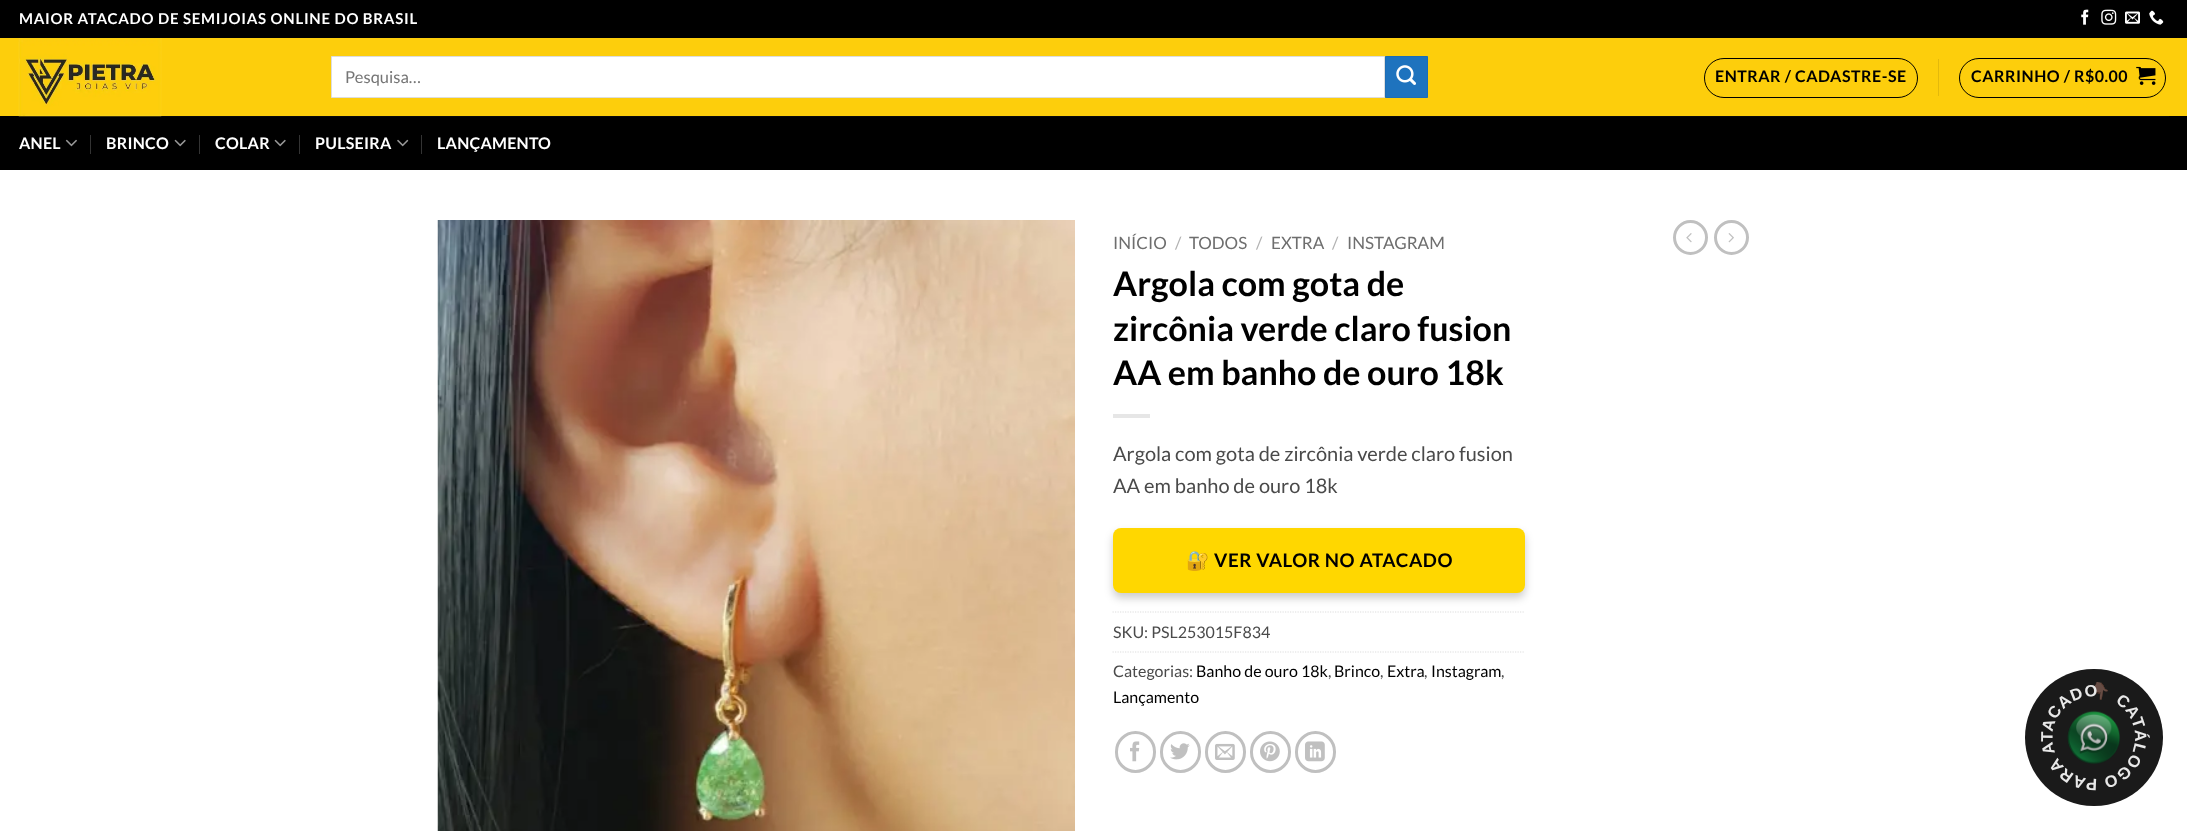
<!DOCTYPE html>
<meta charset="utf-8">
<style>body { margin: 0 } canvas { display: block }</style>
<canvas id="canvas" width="2187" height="831"></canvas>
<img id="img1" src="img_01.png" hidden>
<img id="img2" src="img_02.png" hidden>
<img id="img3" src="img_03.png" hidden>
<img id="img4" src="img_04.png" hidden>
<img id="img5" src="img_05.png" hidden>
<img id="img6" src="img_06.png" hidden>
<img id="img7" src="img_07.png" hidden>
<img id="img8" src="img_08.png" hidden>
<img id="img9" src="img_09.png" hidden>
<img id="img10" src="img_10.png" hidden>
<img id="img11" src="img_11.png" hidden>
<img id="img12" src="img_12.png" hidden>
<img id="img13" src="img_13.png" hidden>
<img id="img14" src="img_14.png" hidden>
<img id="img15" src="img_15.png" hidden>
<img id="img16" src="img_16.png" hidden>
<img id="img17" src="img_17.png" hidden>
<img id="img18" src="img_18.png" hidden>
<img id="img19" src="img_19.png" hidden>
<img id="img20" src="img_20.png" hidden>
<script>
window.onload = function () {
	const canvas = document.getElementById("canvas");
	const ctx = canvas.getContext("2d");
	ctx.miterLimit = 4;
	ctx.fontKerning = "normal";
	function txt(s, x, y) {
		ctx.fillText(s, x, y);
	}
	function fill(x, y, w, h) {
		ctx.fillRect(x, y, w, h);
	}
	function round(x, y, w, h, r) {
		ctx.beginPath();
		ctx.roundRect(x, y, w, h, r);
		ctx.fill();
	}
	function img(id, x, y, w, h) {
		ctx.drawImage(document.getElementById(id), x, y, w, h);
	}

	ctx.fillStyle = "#FFFFFF";
	fill(0, 0, 2187, 831);
	ctx.fillStyle = "#000000";
	fill(0, 0, 2187, 38);
	img("img1", 2081, 9, 8, 16);
	img("img2", 2101, 9, 16, 16);
	img("img3", 2125, 11, 15, 13);
	img("img4", 2149, 10, 15, 15);
	ctx.fillStyle = "#FDCE0C";
	fill(0, 38, 2187, 78);
	ctx.fillStyle = "#000000";
	fill(0, 116, 2187, 54);
	img("img5", 18, 38, 144, 79);
	ctx.fillStyle = "#FFFFFF";
	ctx.beginPath();
	ctx.rect(331.5, 56.5, 1053, 41);
	ctx.fill();
	ctx.strokeStyle = "#DDDDDD";
	ctx.stroke();
	ctx.fillStyle = "#1E73BE";
	ctx.beginPath();
	ctx.rect(1385.5, 56.5, 42, 41);
	ctx.fill();
	ctx.strokeStyle = "#1D6DB5";
	ctx.stroke();
	img("img6", 1396, 65, 20, 20);
	ctx.beginPath();
	ctx.roundRect(1704.5, 58.5, 213, 39, 19.5);
	ctx.strokeStyle = "#000000";
	ctx.stroke();
	ctx.fillStyle = "#E4B90B";
	fill(1938, 59, 1, 37);
	ctx.beginPath();
	ctx.roundRect(1959.5, 58.5, 206, 39, 19.5);
	ctx.stroke();
	img("img7", 2136, 66, 20, 19);
	ctx.fillStyle = "rgba(74, 74, 74, 0.1)";
	fill(19, 116, 2150, 1);
	img("img8", 65, 139, 12, 8);
	ctx.fillStyle = "#333333";
	fill(90, 135, 1, 19);
	img("img9", 174, 139, 12, 8);
	fill(199, 135, 1, 19);
	img("img9", 274, 139, 12, 8);
	fill(299, 135, 1, 19);
	img("img10", 397, 139, 12, 8);
	fill(421, 135, 1, 19);
	img("img11", 437, 220, 638, 611);
	ctx.fillStyle = "#E6E6E6";
	fill(1113, 414, 37, 4);
	ctx.fillStyle = "rgba(0, 0, 0, 0.2)";
	ctx.filter = "blur(4px)";
	ctx.beginPath();
	ctx.roundRect(1113, 533, 412, 65, 8);
	ctx.fill();
	ctx.filter = "none";
	ctx.fillStyle = "#FFD700";
	round(1113, 528, 412, 65, 8);
	ctx.beginPath();
	ctx.moveTo(1112.5, 612);
	ctx.lineTo(1525, 612);
	ctx.strokeStyle = "#DDDDDD";
	ctx.lineWidth = 1.2;
	ctx.setLineDash([1.25, 1.25]);
	ctx.stroke();
	ctx.beginPath();
	ctx.moveTo(1112.5, 652);
	ctx.lineTo(1525, 652);
	ctx.stroke();
	ctx.beginPath();
	ctx.roundRect(1116.5, 732.5, 38, 39, 19);
	ctx.strokeStyle = "#C0C0C0";
	ctx.lineWidth = 3;
	ctx.setLineDash([]);
	ctx.stroke();
	img("img12", 1130, 741, 10, 21);
	ctx.beginPath();
	ctx.roundRect(1161.5, 732.5, 38, 39, 19);
	ctx.stroke();
	img("img13", 1170, 743, 20, 17);
	ctx.beginPath();
	ctx.roundRect(1206.5, 732.5, 38, 39, 19);
	ctx.stroke();
	img("img14", 1215, 743, 20, 17);
	ctx.beginPath();
	ctx.roundRect(1251.5, 732.5, 38, 39, 19);
	ctx.stroke();
	img("img15", 1260, 741, 20, 21);
	ctx.beginPath();
	ctx.roundRect(1296.5, 732.5, 38, 39, 19);
	ctx.stroke();
	img("img16", 1305, 741, 20, 21);
	ctx.beginPath();
	ctx.arc(1690.5, 237.5, 16, 0, Math.PI * 2);
	ctx.stroke();
	img("img17", 1686, 233, 6, 10);
	ctx.beginPath();
	ctx.arc(1731.5, 237.5, 16, 0, Math.PI * 2);
	ctx.stroke();
	img("img18", 1728, 233, 6, 10);
	ctx.fillStyle = "#1A1A1A";
	round(2025, 669, 138, 137, 68.5);
	img("img19", 2041, 682, 109, 109);
	img("img20", 2067, 710, 53, 54);
	ctx.letterSpacing = "0.75px";
	ctx.font = "bold 15px Lato";
	ctx.fillStyle = "#FFFFFF";
	txt("MAIOR ATACADO DE SEMIJOIAS ONLINE DO BRASIL", 19, 24);
	ctx.letterSpacing = "0px";
	ctx.font = "16.5px Lato";
	ctx.fillStyle = "#757575";
	txt("Pesquisa…", 345, 83);
	ctx.letterSpacing = "0.5px";
	ctx.font = "bold 16px Lato";
	ctx.fillStyle = "#000000";
	txt("ENTRAR / CADASTRE-SE", 1715, 82);
	txt("CARRINHO / R$0.00", 1971, 82);
	ctx.letterSpacing = "0.25px";
	ctx.fillStyle = "#FFFFFF";
	txt("ANEL", 19, 149);
	txt("BRINCO", 106, 149);
	txt("COLAR", 215, 149);
	txt("PULSEIRA", 315, 149);
	txt("LANÇAMENTO", 437, 149);
	ctx.letterSpacing = "0px";
	ctx.font = "17px Lato";
	ctx.fillStyle = "#6E6E6E";
	txt("INÍCIO", 1113, 249);
	ctx.fillStyle = "#B2B2B2";
	txt("/", 1175, 249);
	ctx.fillStyle = "#6E6E6E";
	txt("TODOS", 1189, 249);
	ctx.fillStyle = "#B2B2B2";
	txt("/", 1256, 249);
	ctx.fillStyle = "#6E6E6E";
	txt("EXTRA", 1271, 249);
	ctx.fillStyle = "#B2B2B2";
	txt("/", 1332, 249);
	ctx.fillStyle = "#6E6E6E";
	txt("INSTAGRAM", 1347, 249);
	ctx.font = "bold 34px Lato";
	ctx.fillStyle = "#000000";
	txt("Argola com gota de", 1113, 296);
	txt("zircônia verde claro fusion", 1113, 341);
	txt("AA em banho de ouro 18k", 1113, 385);
	ctx.font = "20px Lato";
	ctx.fillStyle = "#4A4A4A";
	txt("Argola com gota de zircônia verde claro fusion", 1113, 461);
	txt("AA em banho de ouro 18k", 1113, 493);
	ctx.letterSpacing = "0.6px";
	ctx.font = "bold 18.75px Noto Color Emoji";
	ctx.fillStyle = "#000000";
	txt("🔐", 1186, 567);
	ctx.font = "bold 18.75px Lato";
	txt("VER VALOR NO ATACADO", 1214, 567);
	ctx.letterSpacing = "0px";
	ctx.font = "16px Lato";
	ctx.fillStyle = "#4A4A4A";
	txt("SKU: PSL253015F834", 1113, 638);
	txt("Categorias:", 1113, 677);
	ctx.fillStyle = "#000000";
	txt("Banho de ouro 18k", 1196, 677);
	ctx.fillStyle = "#4A4A4A";
	txt(",", 1328, 677);
	ctx.fillStyle = "#000000";
	txt("Brinco", 1334, 677);
	ctx.fillStyle = "#4A4A4A";
	txt(",", 1380, 677);
	ctx.fillStyle = "#000000";
	txt("Extra", 1387, 677);
	ctx.fillStyle = "#4A4A4A";
	txt(",", 1424, 677);
	ctx.fillStyle = "#000000";
	txt("Instagram", 1431, 677);
	ctx.fillStyle = "#4A4A4A";
	txt(",", 1501, 677);
	ctx.fillStyle = "#000000";
	txt("Lançamento", 1113, 703);
};
</script>
